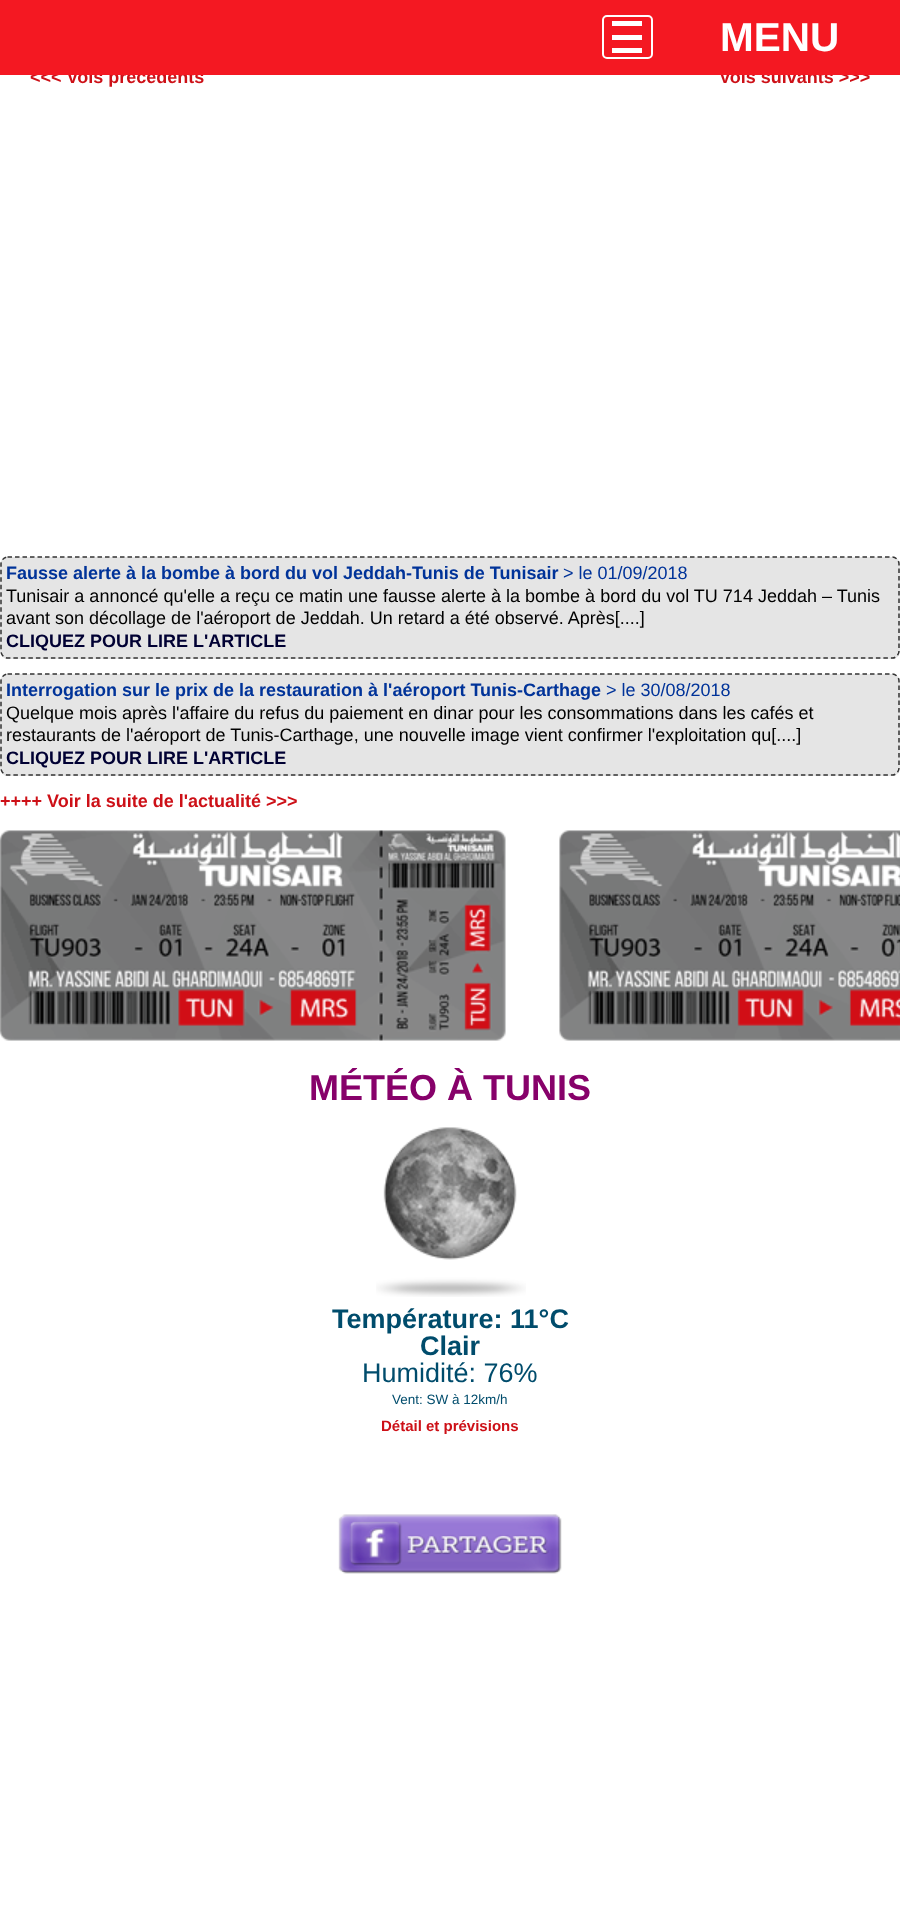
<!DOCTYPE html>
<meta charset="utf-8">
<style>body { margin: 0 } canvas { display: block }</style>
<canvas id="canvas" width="900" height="1919"></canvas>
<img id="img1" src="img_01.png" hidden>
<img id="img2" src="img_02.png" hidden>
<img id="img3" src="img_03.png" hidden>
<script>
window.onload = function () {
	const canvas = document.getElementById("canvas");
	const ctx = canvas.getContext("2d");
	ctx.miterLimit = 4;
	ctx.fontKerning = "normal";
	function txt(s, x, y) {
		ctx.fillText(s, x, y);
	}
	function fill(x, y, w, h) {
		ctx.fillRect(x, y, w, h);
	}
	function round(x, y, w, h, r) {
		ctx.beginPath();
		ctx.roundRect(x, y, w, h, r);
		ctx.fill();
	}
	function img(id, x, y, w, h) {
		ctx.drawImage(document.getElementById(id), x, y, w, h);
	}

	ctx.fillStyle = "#FFFFFF";
	fill(0, 0, 900, 1919);
	ctx.fillStyle = "#E5E5E5";
	round(0, 557, 900, 102, 8);
	ctx.beginPath();
	ctx.moveTo(7.5, 557);
	ctx.lineTo(892.5, 557);
	ctx.bezierCurveTo(896, 557, 899, 560.5, 899, 564);
	ctx.lineTo(899, 651);
	ctx.bezierCurveTo(899, 654.5, 896, 658, 892.5, 658);
	ctx.lineTo(7.5, 658);
	ctx.bezierCurveTo(4, 658, 1, 654.5, 1, 651);
	ctx.lineTo(1, 564);
	ctx.bezierCurveTo(1, 560.5, 4, 557, 7.5, 557);
	ctx.closePath();
	ctx.strokeStyle = "#333333";
	ctx.lineWidth = 1.5;
	ctx.setLineDash([4.5, 3]);
	ctx.stroke();
	round(0, 674, 900, 102, 8);
	ctx.beginPath();
	ctx.moveTo(7.5, 674);
	ctx.lineTo(892.5, 674);
	ctx.bezierCurveTo(896, 674, 899, 677.5, 899, 681);
	ctx.lineTo(899, 768);
	ctx.bezierCurveTo(899, 771.5, 896, 775, 892.5, 775);
	ctx.lineTo(7.5, 775);
	ctx.bezierCurveTo(4, 775, 1, 771.5, 1, 768);
	ctx.lineTo(1, 681);
	ctx.bezierCurveTo(1, 677.5, 4, 674, 7.5, 674);
	ctx.closePath();
	ctx.stroke();
	img("img1", 0, 830, 900, 211);
	img("img2", 376, 1127, 150, 170);
	img("img3", 338, 1514, 224, 60);
	ctx.font = "bold 18px Liberation Sans";
	ctx.fillStyle = "#CD1017";
	txt("<<< Vols précédents", 30, 83);
	txt("Vols suivants >>>", 719, 83);
	ctx.fillStyle = "#F41822";
	fill(0, 0, 900, 75);
	ctx.beginPath();
	ctx.roundRect(603, 16, 49, 42, 4);
	ctx.strokeStyle = "#FFFFFF";
	ctx.lineWidth = 2;
	ctx.setLineDash([]);
	ctx.stroke();
	ctx.fillStyle = "#FFFFFF";
	fill(612, 48, 30, 5);
	fill(612, 35, 30, 5);
	fill(612, 21, 30, 5);
	ctx.font = "bold 40.5px Liberation Sans";
	txt("MENU", 720, 51);
	ctx.font = "bold 18px Liberation Sans";
	ctx.fillStyle = "#003399";
	txt("Fausse alerte à la bombe à bord du vol Jeddah-Tunis de Tunisair", 6, 579);
	ctx.font = "18px Liberation Sans";
	txt("> le 01/09/2018", 563, 579);
	ctx.fillStyle = "#000000";
	txt("Tunisair a annoncé qu'elle a reçu ce matin une fausse alerte à la bombe à bord du vol TU 714 Jeddah – Tunis", 6, 602);
	txt("avant son décollage de l'aéroport de Jeddah. Un retard a été observé. Après[....]", 6, 624);
	ctx.font = "bold 18px Liberation Sans";
	ctx.fillStyle = "#000033";
	txt("CLIQUEZ POUR LIRE L'ARTICLE", 6, 647);
	ctx.fillStyle = "#003399";
	txt("Interrogation sur le prix de la restauration à l'aéroport Tunis-Carthage", 6, 696);
	ctx.font = "18px Liberation Sans";
	txt("> le 30/08/2018", 606, 696);
	ctx.fillStyle = "#000000";
	txt("Quelque mois après l'affaire du refus du paiement en dinar pour les consommations dans les cafés et", 6, 719);
	txt("restaurants de l'aéroport de Tunis-Carthage, une nouvelle image vient confirmer l'exploitation qu[....]", 6, 741);
	ctx.font = "bold 18px Liberation Sans";
	ctx.fillStyle = "#000033";
	txt("CLIQUEZ POUR LIRE L'ARTICLE", 6, 764);
	ctx.fillStyle = "#CD1017";
	txt("++++ Voir la suite de l'actualité >>>", 0, 807);
	ctx.font = "bold 36px Liberation Sans";
	ctx.fillStyle = "#87016A";
	txt("MÉTÉO À TUNIS", 309, 1100);
	ctx.font = "bold 27px Liberation Sans";
	ctx.fillStyle = "#004C6C";
	txt("Température: 11°C", 332, 1328);
	txt("Clair", 420, 1355);
	ctx.font = "27px Liberation Sans";
	txt("Humidité: 76%", 362, 1382);
	ctx.font = "13.5px Liberation Sans";
	txt("Vent: SW à 12km/h", 392, 1404);
	ctx.font = "bold 15px Liberation Sans";
	ctx.fillStyle = "#CD1017";
	txt("Détail et prévisions", 381, 1431);
};
</script>
